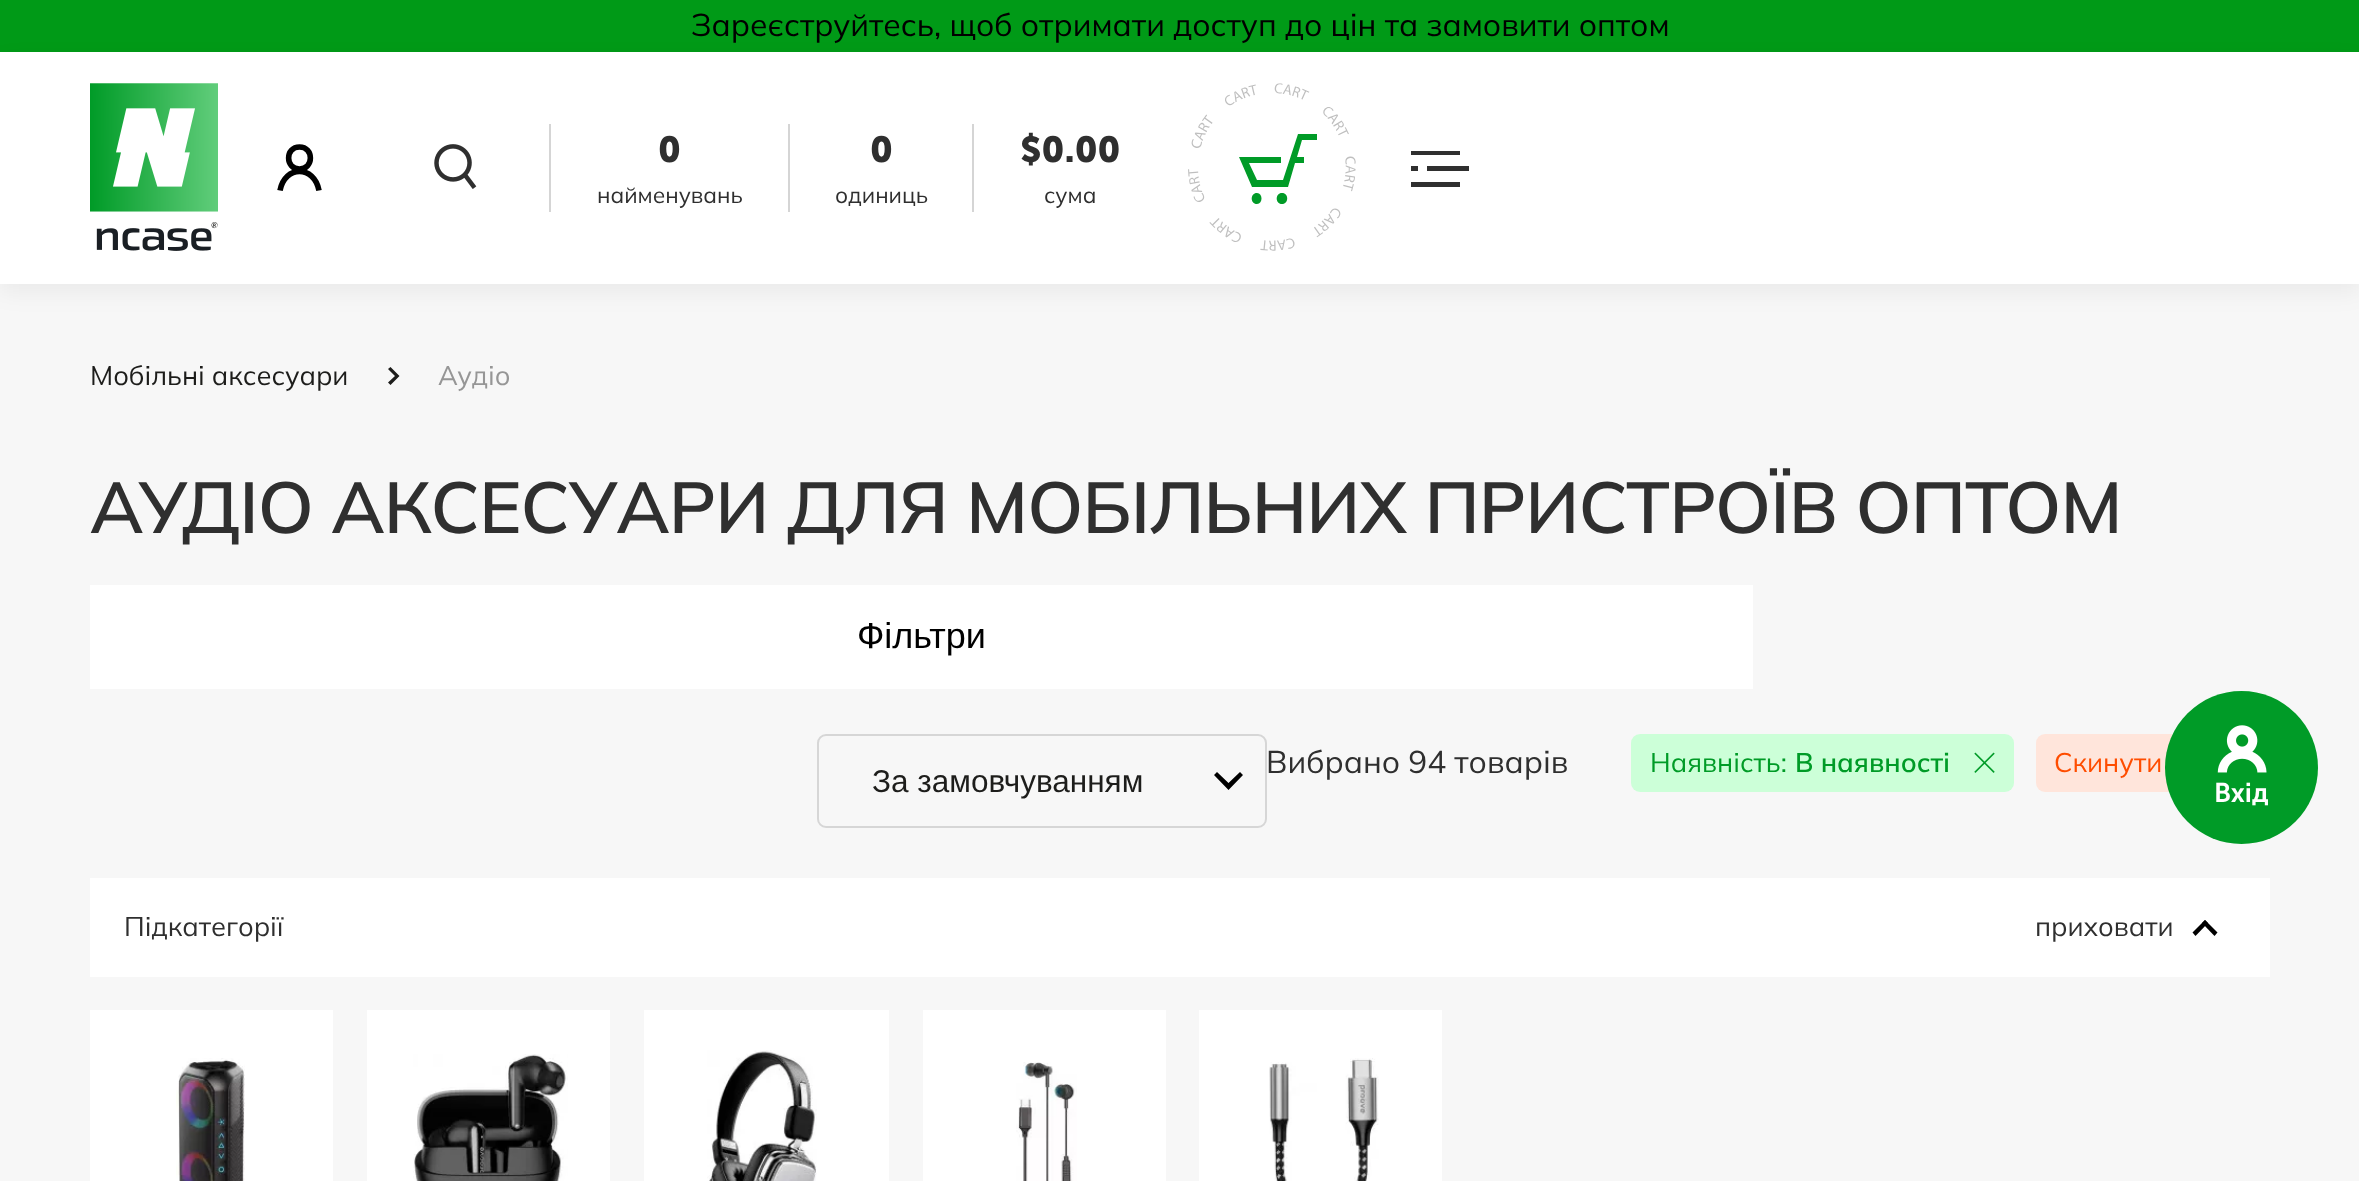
<!DOCTYPE html>
<meta charset="utf-8">
<style>body { margin: 0 } canvas { display: block }</style>
<canvas id="canvas" width="2359" height="1181"></canvas>
<img id="img1" src="img_01.png" hidden>
<img id="img2" src="img_02.png" hidden>
<img id="img3" src="img_03.png" hidden>
<img id="img4" src="img_04.png" hidden>
<img id="img5" src="img_05.png" hidden>
<img id="img6" src="img_06.png" hidden>
<img id="img7" src="img_07.png" hidden>
<img id="img8" src="img_08.png" hidden>
<img id="img9" src="img_09.png" hidden>
<img id="img10" src="img_10.png" hidden>
<script>
window.onload = function () {
	const canvas = document.getElementById("canvas");
	const ctx = canvas.getContext("2d");
	ctx.miterLimit = 4;
	ctx.fontKerning = "normal";
	function txt(s, x, y) {
		ctx.fillText(s, x, y);
	}
	function fill(x, y, w, h) {
		ctx.fillRect(x, y, w, h);
	}
	function round(x, y, w, h, r) {
		ctx.beginPath();
		ctx.roundRect(x, y, w, h, r);
		ctx.fill();
	}
	function img(id, x, y, w, h) {
		ctx.drawImage(document.getElementById(id), x, y, w, h);
	}

	ctx.fillStyle = "#F7F7F7";
	fill(0, 0, 2359, 1181);
	ctx.fillStyle = "#009A17";
	fill(0, 0, 2359, 52);
	ctx.fillStyle = "rgba(0, 0, 0, 0.05)";
	ctx.filter = "blur(11px)";
	ctx.beginPath();
	ctx.rect(0, 61, 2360, 232);
	ctx.fill();
	ctx.filter = "none";
	ctx.fillStyle = "#FFFFFF";
	fill(0, 52, 2359, 232);
	img("img1", 90, 83, 128, 168);
	ctx.beginPath();
	ctx.moveTo(299.5, 169);
	ctx.bezierCurveTo(314, 169, 314, 147, 299.5, 147);
	ctx.bezierCurveTo(285, 147, 285, 169, 299.5, 169);
	ctx.closePath();
	ctx.moveTo(280, 190.5);
	ctx.bezierCurveTo(285, 165, 314, 165, 319, 190.5);
	ctx.strokeStyle = "#000000";
	ctx.lineWidth = 5.6;
	ctx.stroke();
	img("img2", 434, 144, 43, 45);
	ctx.fillStyle = "#D5D5D5";
	fill(549, 124, 2, 88);
	fill(788, 124, 2, 88);
	fill(972, 124, 2, 88);
	img("img3", 1188, 83, 168, 168);
	ctx.fillStyle = "#009B27";
	ctx.beginPath();
	ctx.moveTo(1257, 193);
	ctx.bezierCurveTo(1263, 193, 1263, 204, 1257, 204);
	ctx.bezierCurveTo(1250, 204, 1250, 193, 1257, 193);
	ctx.closePath();
	ctx.moveTo(1282, 193);
	ctx.bezierCurveTo(1289, 193, 1289, 204, 1282, 204);
	ctx.bezierCurveTo(1275, 204, 1275, 193, 1282, 193);
	ctx.closePath();
	ctx.moveTo(1317, 134);
	ctx.lineTo(1317, 140);
	ctx.lineTo(1302, 140);
	ctx.lineTo(1297, 157);
	ctx.lineTo(1304, 157);
	ctx.lineTo(1304, 163);
	ctx.lineTo(1295, 163);
	ctx.lineTo(1288, 187);
	ctx.lineTo(1252, 187);
	ctx.lineTo(1239, 157);
	ctx.lineTo(1281, 157);
	ctx.lineTo(1281, 163);
	ctx.lineTo(1249, 163);
	ctx.lineTo(1257, 180);
	ctx.lineTo(1283, 180);
	ctx.lineTo(1298, 134);
	ctx.closePath();
	ctx.fill();
	ctx.fillStyle = "#2F2F2F";
	ctx.beginPath();
	ctx.moveTo(1460, 182);
	ctx.lineTo(1460, 187);
	ctx.lineTo(1411, 187);
	ctx.lineTo(1411, 182);
	ctx.closePath();
	ctx.moveTo(1469, 166);
	ctx.lineTo(1469, 171);
	ctx.lineTo(1427, 171);
	ctx.lineTo(1427, 166);
	ctx.closePath();
	ctx.moveTo(1418, 166);
	ctx.lineTo(1418, 171);
	ctx.lineTo(1411, 171);
	ctx.lineTo(1411, 166);
	ctx.closePath();
	ctx.moveTo(1460, 151);
	ctx.lineTo(1460, 155);
	ctx.lineTo(1411, 155);
	ctx.lineTo(1411, 151);
	ctx.closePath();
	ctx.fill();
	ctx.fillStyle = "#1D1D1B";
	ctx.beginPath();
	ctx.moveTo(388, 369);
	ctx.lineTo(390.5, 367);
	ctx.lineTo(399.5, 376);
	ctx.lineTo(390.5, 385);
	ctx.lineTo(388, 382.5);
	ctx.lineTo(395, 376);
	ctx.closePath();
	ctx.fill();
	ctx.fillStyle = "#FFFFFF";
	fill(90, 585, 1663, 104);
	ctx.fillStyle = "#CCFFD8";
	round(1631, 734, 383, 58, 9);
	img("img4", 1974, 752, 21, 21);
	ctx.fillStyle = "#FFE5DB";
	round(2036, 734, 144, 58, 9);
	ctx.fillStyle = "#000000";
	ctx.beginPath();
	ctx.moveTo(1240, 772);
	ctx.lineTo(1243, 775);
	ctx.lineTo(1228.5, 790);
	ctx.lineTo(1214, 775);
	ctx.lineTo(1217, 772);
	ctx.lineTo(1228.5, 783);
	ctx.closePath();
	ctx.fill();
	ctx.beginPath();
	ctx.roundRect(818, 735, 448, 92, 8);
	ctx.strokeStyle = "#D6D6D6";
	ctx.lineWidth = 2;
	ctx.stroke();
	ctx.fillStyle = "#FFFFFF";
	fill(90, 878, 2180, 99);
	ctx.fillStyle = "#000000";
	ctx.beginPath();
	ctx.moveTo(2195.5, 936);
	ctx.lineTo(2192.5, 932.5);
	ctx.lineTo(2205, 920);
	ctx.lineTo(2208, 923);
	ctx.closePath();
	ctx.fill();
	ctx.beginPath();
	ctx.moveTo(2214.5, 936);
	ctx.lineTo(2202, 923);
	ctx.lineTo(2205, 920);
	ctx.lineTo(2217.5, 932.5);
	ctx.closePath();
	ctx.fill();
	ctx.fillStyle = "#FFFFFF";
	fill(90, 1010, 243, 171);
	img("img5", 176, 1058, 69, 123);
	fill(367, 1010, 243, 171);
	img("img6", 413, 1054, 155, 127);
	fill(644, 1010, 245, 171);
	img("img7", 707, 1050, 110, 131);
	fill(923, 1010, 243, 171);
	img("img8", 1016, 1062, 61, 119);
	fill(1199, 1010, 243, 171);
	img("img9", 1269, 1058, 110, 123);
	ctx.fillStyle = "#009B27";
	ctx.beginPath();
	ctx.arc(2241.5, 767.5, 76.5, 0, Math.PI * 2);
	ctx.fill();
	img("img10", 2217, 725, 50, 48);
	ctx.font = "31.5px Mulish";
	ctx.fillStyle = "#000000";
	txt("Зареєструйтесь, щоб отримати доступ до цін та замовити оптом", 691, 36);
	ctx.font = "bold 36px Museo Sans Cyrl";
	ctx.fillStyle = "#2F2F2F";
	txt("0", 658, 162);
	ctx.font = "22.5px Mulish";
	txt("найменувань", 597, 203);
	ctx.font = "bold 36px Museo Sans Cyrl";
	txt("0", 870, 162);
	ctx.font = "22.5px Mulish";
	txt("одиниць", 835, 203);
	ctx.font = "bold 36px Museo Sans Cyrl";
	txt("$0.00", 1020, 162);
	ctx.font = "22.5px Mulish";
	txt("сума", 1044, 203);
	ctx.font = "27px Mulish";
	ctx.fillStyle = "#1D1D1B";
	txt("Мобільні аксесуари", 90, 385);
	ctx.fillStyle = "#969696";
	txt("Аудіо", 438, 385);
	ctx.letterSpacing = "-0.9px";
	ctx.font = "600 72px Mulish";
	ctx.fillStyle = "#2F2F2F";
	txt("АУДІО АКСЕСУАРИ ДЛЯ МОБІЛЬНИХ ПРИСТРОЇВ ОПТОМ", 90, 533);
	ctx.letterSpacing = "0px";
	ctx.font = "36px Liberation Sans";
	ctx.fillStyle = "#000000";
	txt("Фільтри", 857, 648);
	ctx.font = "31.5px Mulish";
	ctx.fillStyle = "#2F2F2F";
	txt("Вибрано 94 товарів", 1266, 773);
	ctx.font = "27px Mulish";
	ctx.fillStyle = "#009B27";
	txt("Наявність:", 1650, 772);
	ctx.font = "600 27px Mulish";
	txt("В наявності", 1795, 772);
	ctx.font = "27px Mulish";
	ctx.fillStyle = "#FF4D00";
	txt("Скинути", 2054, 772);
	ctx.font = "31.5px Liberation Sans";
	ctx.fillStyle = "#1D1D1B";
	txt("За замовчуванням", 872, 792);
	ctx.font = "27px Mulish";
	ctx.fillStyle = "#2F2F2F";
	txt("Підкатегорії", 124, 936);
	txt("приховати", 2035, 936);
	ctx.font = "600 27px Museo Sans Cyrl";
	ctx.fillStyle = "#FFFFFF";
	txt("Вхід", 2214, 802);
};
</script>
